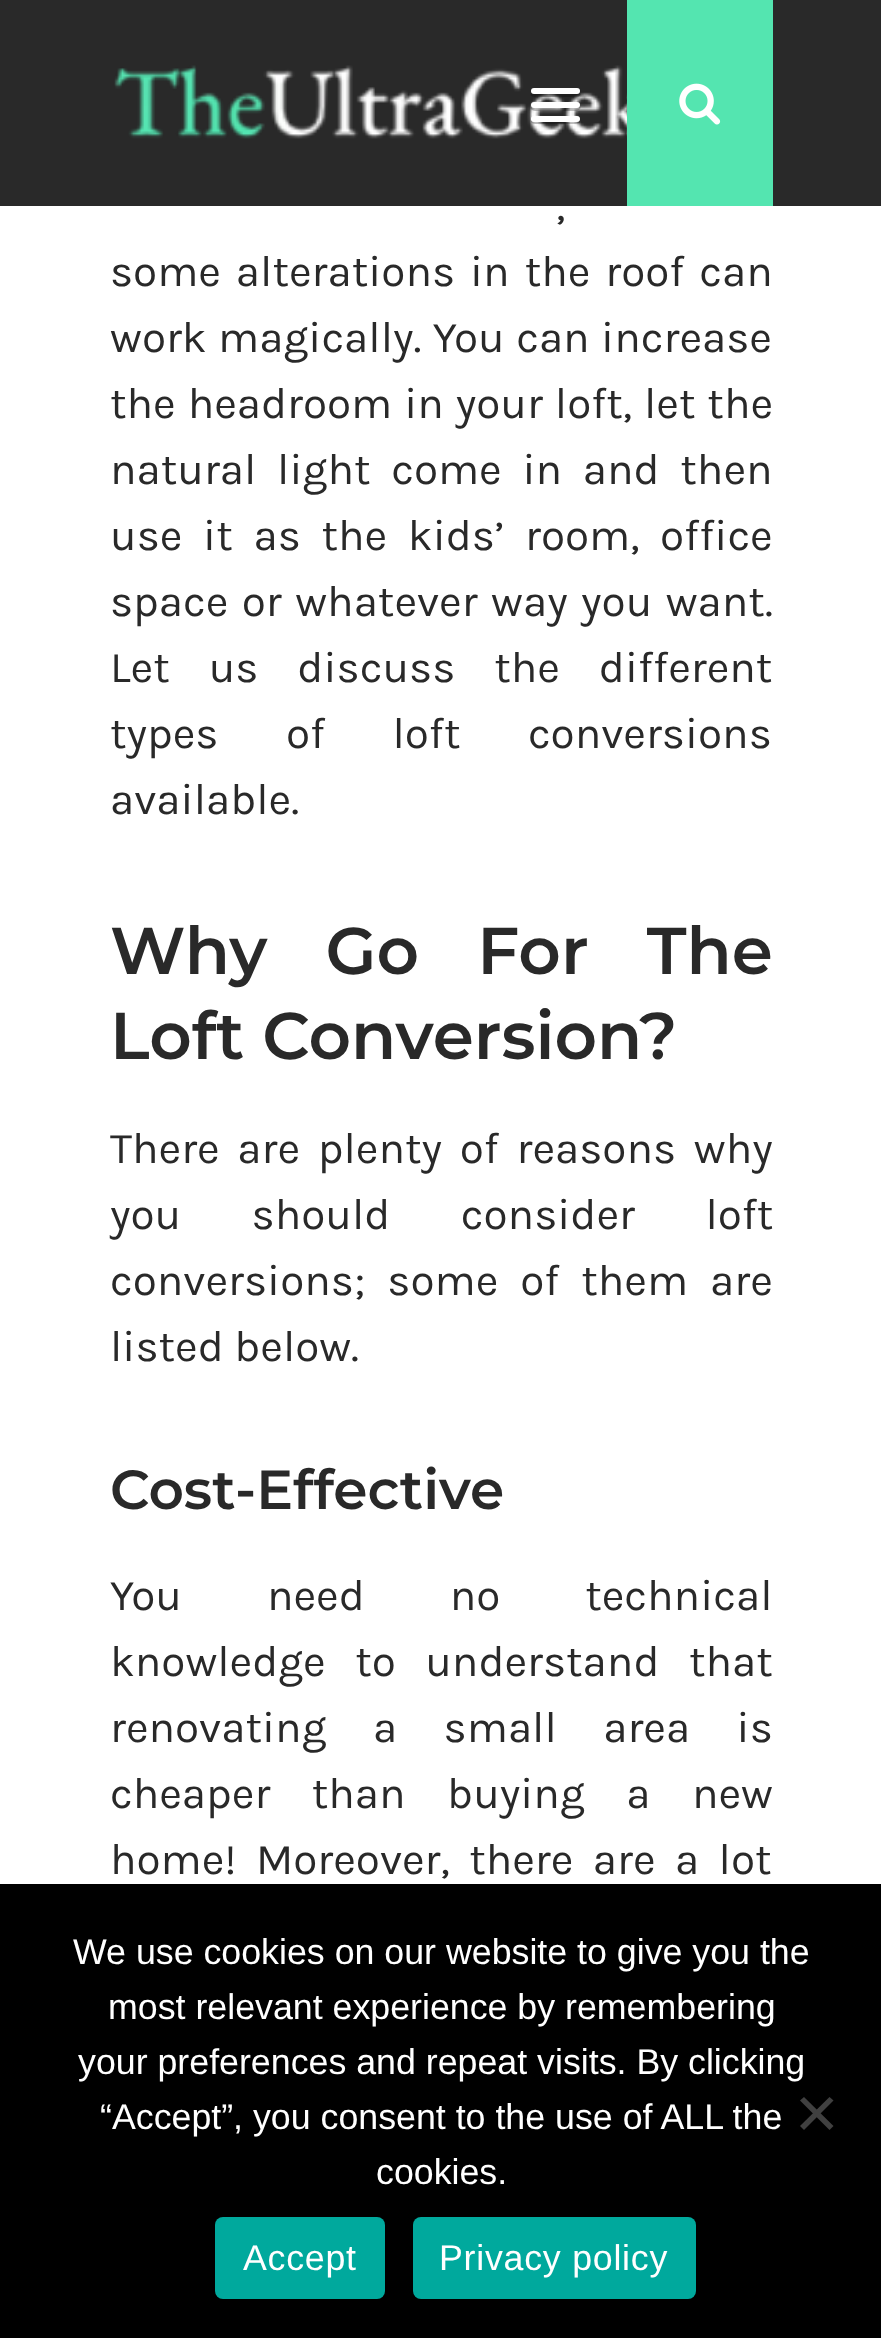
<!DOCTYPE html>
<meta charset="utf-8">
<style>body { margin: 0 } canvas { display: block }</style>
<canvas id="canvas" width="881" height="2338"></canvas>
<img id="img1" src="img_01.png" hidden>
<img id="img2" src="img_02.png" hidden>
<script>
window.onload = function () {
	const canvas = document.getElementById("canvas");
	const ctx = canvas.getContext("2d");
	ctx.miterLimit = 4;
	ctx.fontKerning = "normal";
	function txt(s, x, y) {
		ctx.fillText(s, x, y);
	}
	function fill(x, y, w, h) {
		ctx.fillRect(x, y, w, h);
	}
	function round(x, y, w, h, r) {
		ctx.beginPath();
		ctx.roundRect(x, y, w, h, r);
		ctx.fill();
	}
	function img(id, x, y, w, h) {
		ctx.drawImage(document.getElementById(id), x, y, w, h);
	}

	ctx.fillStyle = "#FFFFFF";
	fill(0, 0, 881, 2338);
	ctx.fillStyle = "#292929";
	fill(0, 0, 881, 206);
	img("img1", 114, 65, 513, 74);
	ctx.fillStyle = "#54E5B0";
	fill(627, 0, 146, 206);
	img("img2", 679, 83, 42, 42);
	ctx.fillStyle = "rgba(0, 0, 0, 0.25)";
	ctx.beginPath();
	ctx.moveTo(531, 93);
	ctx.bezierCurveTo(528, 98, 540, 97, 541, 97);
	ctx.lineTo(570, 97);
	ctx.bezierCurveTo(571, 97, 583, 98, 580, 93);
	ctx.lineTo(578, 93);
	ctx.lineTo(533, 93);
	ctx.closePath();
	ctx.fill();
	ctx.fillStyle = "#FFFFFF";
	round(531, 88, 49, 6, 3);
	ctx.fillStyle = "rgba(0, 0, 0, 0.25)";
	ctx.beginPath();
	ctx.moveTo(531, 106);
	ctx.bezierCurveTo(528, 112, 540, 111, 541, 111);
	ctx.lineTo(570, 111);
	ctx.bezierCurveTo(571, 111, 583, 112, 580, 106);
	ctx.lineTo(578, 107);
	ctx.lineTo(533, 107);
	ctx.closePath();
	ctx.fill();
	ctx.fillStyle = "#FFFFFF";
	round(531, 102, 49, 6, 3);
	ctx.fillStyle = "rgba(0, 0, 0, 0.25)";
	ctx.beginPath();
	ctx.moveTo(531, 120);
	ctx.bezierCurveTo(529, 125, 540, 124, 541, 124);
	ctx.lineTo(570, 124);
	ctx.bezierCurveTo(571, 124, 582, 125, 580, 120);
	ctx.lineTo(578, 121);
	ctx.lineTo(533, 121);
	ctx.closePath();
	ctx.fill();
	ctx.fillStyle = "#FFFFFF";
	round(531, 116, 49, 6, 3);
	ctx.fillStyle = "#000000";
	fill(0, 1884, 881, 454);
	ctx.fillStyle = "#404040";
	ctx.beginPath();
	ctx.moveTo(829.5, 2097);
	ctx.lineTo(833.5, 2100.5);
	ctx.lineTo(804, 2130);
	ctx.lineTo(800, 2126);
	ctx.closePath();
	ctx.fill();
	ctx.beginPath();
	ctx.moveTo(800, 2100.5);
	ctx.lineTo(804, 2097);
	ctx.lineTo(833.5, 2126);
	ctx.lineTo(829.5, 2130);
	ctx.closePath();
	ctx.fill();
	ctx.fillStyle = "#00A99D";
	round(215, 2217, 170, 82, 8);
	round(413, 2217, 283, 82, 8);
	ctx.wordSpacing = "13px";
	ctx.font = "44px Karla";
	ctx.fillStyle = "#292929";
	txt(",", 556, 220);
	ctx.wordSpacing = "4.5px";
	txt("some alterations in the roof can", 110, 286);
	ctx.wordSpacing = "1px";
	txt("work magically. You can increase", 110, 352);
	ctx.wordSpacing = "1.5px";
	txt("the headroom in your loft, let the", 110, 418);
	ctx.wordSpacing = "10.25px";
	txt("natural light come in and then", 110, 484);
	txt("use it as the kids’ room, office", 110, 550);
	ctx.wordSpacing = "3px";
	txt("space or whatever way you want.", 110, 616);
	ctx.wordSpacing = "28.5px";
	txt("Let us discuss the different", 110, 682);
	ctx.wordSpacing = "57px";
	txt("types of loft conversions", 110, 748);
	ctx.wordSpacing = "0px";
	txt("available.", 110, 814);
	ctx.wordSpacing = "40px";
	ctx.font = "600 66px Montserrat";
	txt("Why Go For The", 110, 974);
	ctx.wordSpacing = "0px";
	txt("Loft Conversion?", 110, 1059);
	ctx.wordSpacing = "7.25px";
	ctx.font = "44px Karla";
	txt("There are plenty of reasons why", 110, 1163);
	ctx.wordSpacing = "60px";
	txt("you should consider loft", 110, 1229);
	ctx.wordSpacing = "11.5px";
	txt("conversions; some of them are", 110, 1295);
	ctx.wordSpacing = "0px";
	txt("listed below.", 110, 1361);
	ctx.font = "600 55px Montserrat";
	txt("Cost-Effective", 110, 1509);
	ctx.wordSpacing = "74.5px";
	ctx.font = "44px Karla";
	txt("You need no technical", 110, 1610);
	ctx.wordSpacing = "19px";
	txt("knowledge to understand that", 110, 1676);
	ctx.wordSpacing = "36px";
	txt("renovating a small area is", 110, 1742);
	ctx.wordSpacing = "31px";
	txt("cheaper than buying a new", 110, 1808);
	ctx.wordSpacing = "9px";
	txt("home! Moreover, there are a lot", 110, 1874);
	ctx.wordSpacing = "0px";
	ctx.font = "35.75px Liberation Sans";
	ctx.fillStyle = "#FFFFFF";
	txt("We use cookies on our website to give you the", 73, 1964);
	txt("most relevant experience by remembering", 108, 2019);
	txt("your preferences and repeat visits. By clicking", 78, 2074);
	txt("“Accept”, you consent to the use of ALL the", 100, 2129);
	txt("cookies.", 376, 2184);
	ctx.letterSpacing = "0.75px";
	txt("Accept", 243, 2270);
	txt("Privacy policy", 439, 2270);
};
</script>
